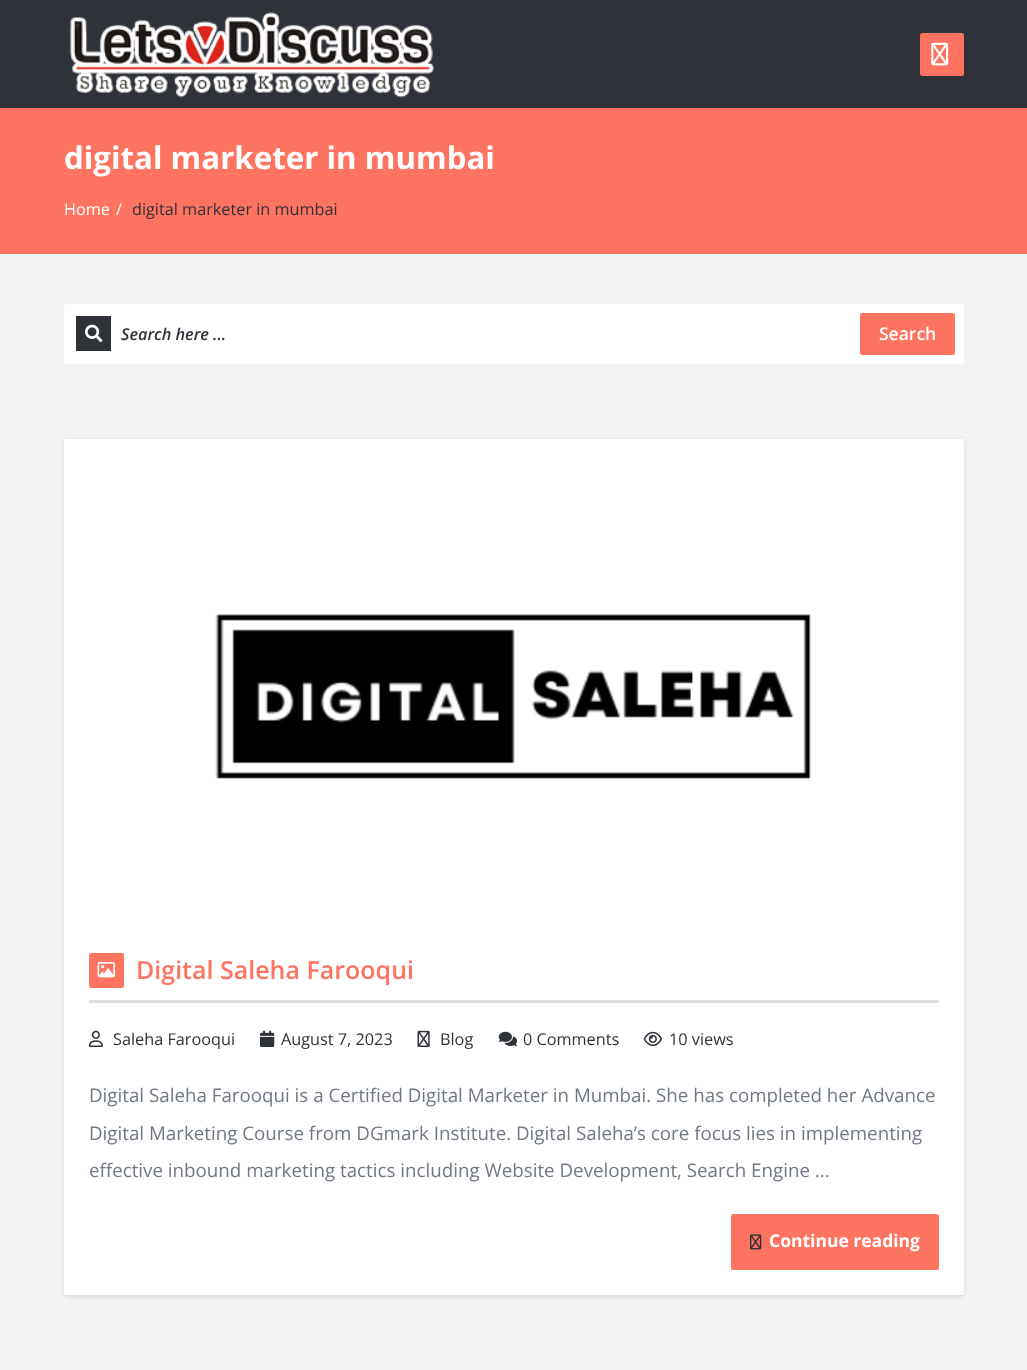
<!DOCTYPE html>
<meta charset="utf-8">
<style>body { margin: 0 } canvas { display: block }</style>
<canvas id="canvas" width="1027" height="1370"></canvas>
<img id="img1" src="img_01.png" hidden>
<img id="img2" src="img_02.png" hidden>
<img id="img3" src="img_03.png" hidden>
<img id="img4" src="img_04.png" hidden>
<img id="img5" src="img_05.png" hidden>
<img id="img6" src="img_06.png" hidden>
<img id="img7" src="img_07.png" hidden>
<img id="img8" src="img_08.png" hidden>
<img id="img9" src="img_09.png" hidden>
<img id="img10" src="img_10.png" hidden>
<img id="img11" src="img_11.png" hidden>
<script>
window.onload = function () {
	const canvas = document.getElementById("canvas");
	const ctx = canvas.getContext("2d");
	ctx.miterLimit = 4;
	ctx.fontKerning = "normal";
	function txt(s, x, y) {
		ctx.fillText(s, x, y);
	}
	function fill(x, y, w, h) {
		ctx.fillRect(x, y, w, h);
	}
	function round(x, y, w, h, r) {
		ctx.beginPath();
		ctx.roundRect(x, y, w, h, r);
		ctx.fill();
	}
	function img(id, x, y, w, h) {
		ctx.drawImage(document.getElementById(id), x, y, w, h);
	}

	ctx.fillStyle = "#F3F3F3";
	fill(0, 0, 1027, 1370);
	ctx.fillStyle = "#2F3239";
	fill(0, 0, 1027, 108);
	img("img1", 69, 12, 365, 86);
	ctx.fillStyle = "#FF7361";
	round(920, 33, 44, 43, 2.5);
	img("img2", 931, 42, 18, 24);
	fill(0, 108, 1027, 146);
	ctx.fillStyle = "#FFFFFF";
	round(64, 304, 900, 60, 2.5);
	ctx.fillStyle = "#2F3239";
	fill(76, 316, 35, 35);
	img("img3", 85, 324, 18, 19);
	ctx.fillStyle = "#FF7361";
	round(860, 313, 95, 42, 2.5);
	ctx.fillStyle = "rgba(0, 0, 0, 0.13)";
	ctx.filter = "blur(3px)";
	ctx.beginPath();
	ctx.rect(65, 441, 898, 855);
	ctx.fill();
	ctx.filter = "none";
	ctx.fillStyle = "#FFFFFF";
	fill(64, 439, 900, 856);
	ctx.fillStyle = "#DEDEDE";
	fill(64, 1295, 900, 1);
	img("img4", 215, 614, 597, 165);
	fill(89, 1000, 850, 3);
	ctx.fillStyle = "#FF7361";
	round(89, 953, 35, 35, 2.5);
	img("img5", 97, 962, 18, 16);
	img("img6", 89, 1030, 14, 17);
	img("img7", 260, 1030, 15, 17);
	img("img8", 417, 1030, 13, 17);
	img("img9", 498, 1031, 19, 15);
	img("img10", 643, 1031, 19, 15);
	round(731, 1214, 208, 56, 2.5);
	img("img11", 750, 1234, 12, 16);
	ctx.font = "bold 31.25px Open Sans";
	ctx.fillStyle = "#FFFFFF";
	txt("digital marketer in mumbai", 64, 169);
	ctx.font = "16.25px Open Sans";
	txt("Home", 64, 215);
	txt("/", 116, 215);
	ctx.fillStyle = "#2F3239";
	txt("digital marketer in mumbai", 132, 215);
	ctx.font = "italic 600 16.25px Open Sans";
	txt("Search here ...", 121, 340);
	ctx.font = "600 17.5px Open Sans";
	ctx.fillStyle = "#FFFFFF";
	txt("Search", 879, 340);
	ctx.font = "600 25px Open Sans";
	ctx.fillStyle = "#FF7361";
	txt("Digital Saleha Farooqui", 136, 979);
	ctx.font = "16.25px Open Sans";
	ctx.fillStyle = "#2F3239";
	txt("Saleha Farooqui", 113, 1045);
	txt("August 7, 2023", 281, 1045);
	txt("Blog", 440, 1045);
	txt("0 Comments", 523, 1045);
	txt("10 views", 669, 1045);
	ctx.font = "18.75px Open Sans";
	ctx.fillStyle = "#707885";
	txt("Digital Saleha Farooqui is a Certified Digital Marketer in Mumbai. She has completed her Advance", 89, 1102);
	txt("Digital Marketing Course from DGmark Institute. Digital Saleha’s core focus lies in implementing", 89, 1140);
	txt("effective inbound marketing tactics including Website Development, Search Engine ...", 89, 1177);
	ctx.font = "bold 17.5px Open Sans";
	ctx.fillStyle = "#FFFFFF";
	txt("Continue reading", 769, 1247);
};
</script>
